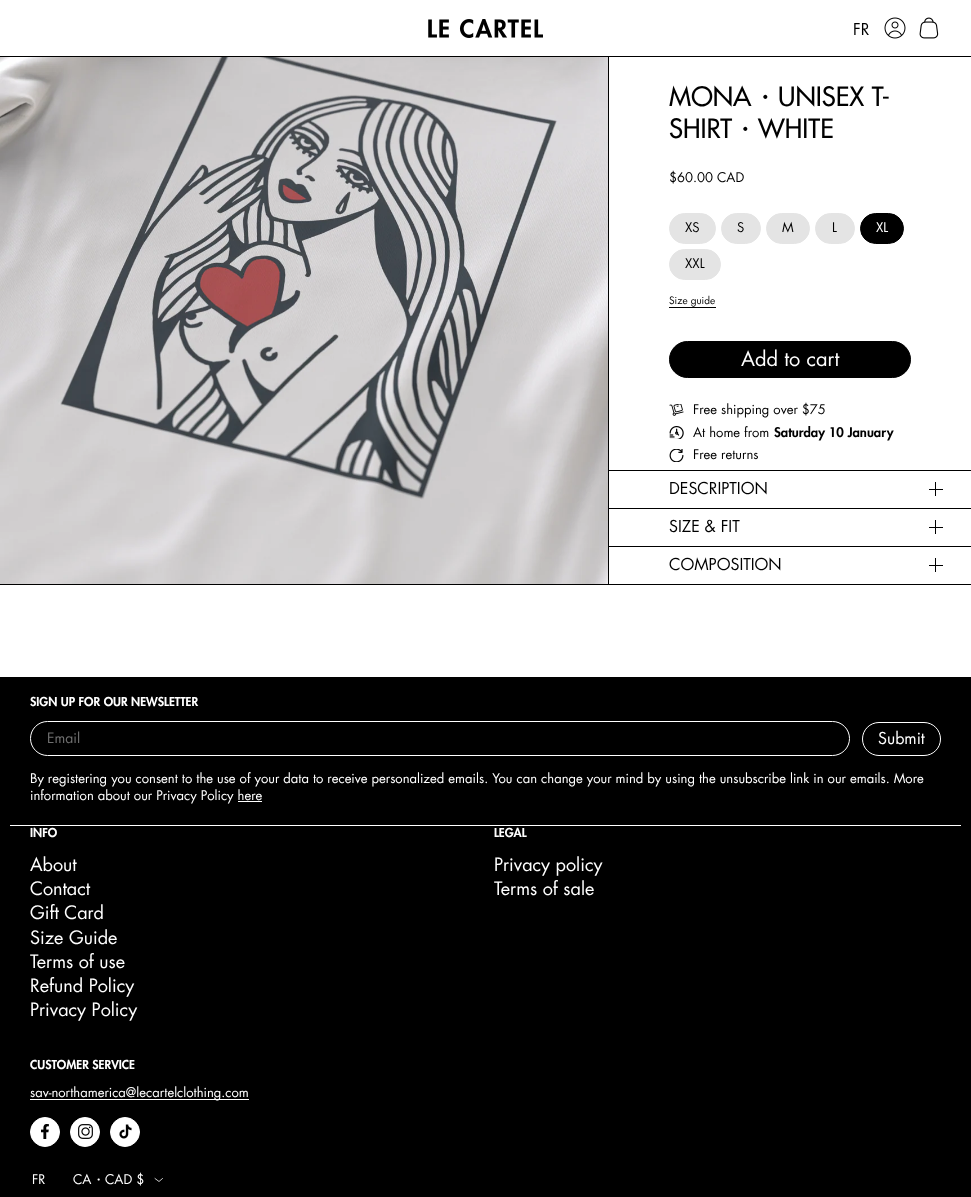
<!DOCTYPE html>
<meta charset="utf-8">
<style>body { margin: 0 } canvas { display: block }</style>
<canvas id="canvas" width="971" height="1197"></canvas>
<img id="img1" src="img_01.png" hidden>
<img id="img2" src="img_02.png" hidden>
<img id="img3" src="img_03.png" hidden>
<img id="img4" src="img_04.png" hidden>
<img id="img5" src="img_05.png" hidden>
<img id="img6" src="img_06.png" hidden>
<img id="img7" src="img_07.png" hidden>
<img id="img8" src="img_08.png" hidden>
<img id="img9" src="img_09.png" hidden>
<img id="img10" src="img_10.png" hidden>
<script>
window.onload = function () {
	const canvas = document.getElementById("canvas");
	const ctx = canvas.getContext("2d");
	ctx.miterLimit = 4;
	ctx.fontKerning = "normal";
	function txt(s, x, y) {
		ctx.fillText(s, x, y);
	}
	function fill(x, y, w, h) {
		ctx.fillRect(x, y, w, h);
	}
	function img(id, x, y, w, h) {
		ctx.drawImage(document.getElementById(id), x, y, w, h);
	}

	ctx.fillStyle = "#FFFFFF";
	fill(0, 0, 971, 1197);
	ctx.fillStyle = "#000000";
	fill(0, 56, 971, 1);
	img("img1", 428, 19, 115, 19);
	img("img2", 884, 17, 22, 22);
	img("img3", 919, 17, 20, 22);
	fill(0, 584, 971, 1);
	fill(608, 57, 1, 527);
	img("img4", 0, 57, 608, 527);
	ctx.fillStyle = "#E4E4E4";
	ctx.beginPath();
	ctx.roundRect(669.5, 213.5, 46, 30, 15);
	ctx.fill();
	ctx.strokeStyle = "#E4E4E4";
	ctx.stroke();
	ctx.beginPath();
	ctx.roundRect(721.5, 213.5, 39, 30, 15);
	ctx.fill();
	ctx.stroke();
	ctx.beginPath();
	ctx.roundRect(766.5, 213.5, 43, 30, 15);
	ctx.fill();
	ctx.stroke();
	ctx.beginPath();
	ctx.roundRect(815.5, 213.5, 39, 30, 15);
	ctx.fill();
	ctx.stroke();
	ctx.fillStyle = "#000000";
	ctx.beginPath();
	ctx.roundRect(860.5, 213.5, 43, 30, 15);
	ctx.fill();
	ctx.strokeStyle = "#000000";
	ctx.stroke();
	ctx.fillStyle = "#E4E4E4";
	ctx.beginPath();
	ctx.roundRect(669.5, 249.5, 51, 30, 15);
	ctx.fill();
	ctx.strokeStyle = "#E4E4E4";
	ctx.stroke();
	ctx.fillStyle = "#000000";
	fill(669, 307, 47, 1);
	ctx.beginPath();
	ctx.roundRect(669.5, 341.5, 241, 36, 18);
	ctx.fill();
	ctx.strokeStyle = "#000000";
	ctx.stroke();
	img("img5", 669, 404, 15, 12);
	img("img6", 669, 426, 15, 13);
	img("img7", 669, 449, 15, 13);
	fill(609, 470, 362, 1);
	fill(929, 489, 14, 1);
	fill(935, 482, 1, 14);
	fill(609, 508, 362, 1);
	fill(929, 527, 14, 1);
	fill(935, 520, 1, 14);
	fill(609, 546, 362, 1);
	fill(929, 565, 14, 1);
	fill(935, 558, 1, 14);
	fill(0, 677, 971, 520);
	ctx.fillStyle = "#FFFFFF";
	fill(10, 825, 951, 1);
	ctx.beginPath();
	ctx.roundRect(30.5, 721.5, 819, 34, 17);
	ctx.strokeStyle = "#FFFFFF";
	ctx.stroke();
	ctx.beginPath();
	ctx.roundRect(862.5, 722.5, 78, 33, 16.5);
	ctx.stroke();
	fill(238, 801, 24, 1);
	fill(30, 1099, 219, 1);
	ctx.beginPath();
	ctx.arc(45, 1132, 14.5, 0, Math.PI * 2);
	ctx.fill();
	ctx.stroke();
	img("img8", 41, 1124, 8, 15);
	ctx.beginPath();
	ctx.arc(85, 1132, 14.5, 0, Math.PI * 2);
	ctx.fill();
	ctx.stroke();
	img("img9", 78, 1124, 15, 15);
	ctx.beginPath();
	ctx.arc(125, 1132, 14.5, 0, Math.PI * 2);
	ctx.fill();
	ctx.stroke();
	img("img10", 119, 1124, 13, 15);
	ctx.beginPath();
	ctx.moveTo(155, 1178.5);
	ctx.lineTo(159, 1181.5);
	ctx.lineTo(162.5, 1178.5);
	ctx.lineWidth = 0.8;
	ctx.lineCap = "round";
	ctx.lineJoin = "round";
	ctx.stroke();
	ctx.font = "16px Futura";
	ctx.fillStyle = "#000000";
	txt("FR", 853, 35);
	ctx.font = "500 26px Futura";
	txt("MONA", 669, 106);
	ctx.font = "500 26px WenQuanYi Zen Hei";
	txt("・", 752, 106);
	ctx.font = "500 26px Futura";
	txt("UNISEX T-", 778, 106);
	txt("SHIRT", 669, 138);
	ctx.font = "500 26px WenQuanYi Zen Hei";
	txt("・", 732, 138);
	ctx.font = "500 26px Futura";
	txt("WHITE", 758, 138);
	ctx.font = "13px Futura";
	txt("$60.00 CAD", 669, 182);
	txt("XS", 685, 232);
	txt("S", 737, 232);
	txt("M", 782, 232);
	txt("L", 832, 232);
	ctx.fillStyle = "#FFFFFF";
	txt("XL", 876, 232);
	ctx.fillStyle = "#000000";
	txt("XXL", 685, 268);
	ctx.font = "10px Futura";
	txt("Size guide", 669, 304);
	ctx.font = "20px Futura";
	ctx.fillStyle = "#FFFFFF";
	txt("Add to cart", 741, 366);
	ctx.font = "13px Futura";
	ctx.fillStyle = "#000000";
	txt("Free shipping over $75", 693, 414);
	txt("At home from", 693, 437);
	ctx.font = "900 13px Futura";
	txt("Saturday 10 January", 774, 437);
	ctx.font = "13px Futura";
	txt("Free returns", 693, 459);
	ctx.font = "16px Futura";
	txt("DESCRIPTION", 669, 494);
	txt("SIZE & FIT", 669, 532);
	txt("COMPOSITION", 669, 570);
	ctx.font = "900 12px Futura";
	ctx.fillStyle = "#FFFFFF";
	txt("SIGN UP FOR OUR NEWSLETTER", 30, 706);
	ctx.font = "14px 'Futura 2'";
	ctx.fillStyle = "#707070";
	txt("Email", 47, 743);
	ctx.font = "16px 'Futura 2'";
	ctx.fillStyle = "#FFFFFF";
	txt("Submit", 878, 744);
	ctx.font = "13px Futura";
	txt("By registering you consent to the use of your data to receive personalized emails. You can change your mind by using the unsubscribe link in our emails. More", 30, 783);
	txt("information about our Privacy Policy here", 30, 800);
	ctx.font = "900 12px Futura";
	txt("INFO", 30, 837);
	ctx.font = "18px Futura";
	txt("About", 30, 871);
	txt("Contact", 30, 895);
	txt("Gift Card", 30, 919);
	txt("Size Guide", 30, 944);
	txt("Terms of use", 30, 968);
	txt("Refund Policy", 30, 992);
	txt("Privacy Policy", 30, 1016);
	ctx.font = "900 12px Futura";
	txt("LEGAL", 494, 837);
	ctx.font = "18px Futura";
	txt("Privacy policy", 494, 871);
	txt("Terms of sale", 494, 895);
	ctx.font = "900 12px Futura";
	txt("CUSTOMER SERVICE", 30, 1069);
	ctx.font = "13px Futura";
	txt("sav-northamerica@lecartelclothing.com", 30, 1097);
	txt("FR", 32, 1184);
	txt("CA", 73, 1184);
	ctx.font = "500 13px WenQuanYi Zen Hei";
	txt("・", 92, 1184);
	ctx.font = "13px Futura";
	txt("CAD $", 105, 1184);
};
</script>
